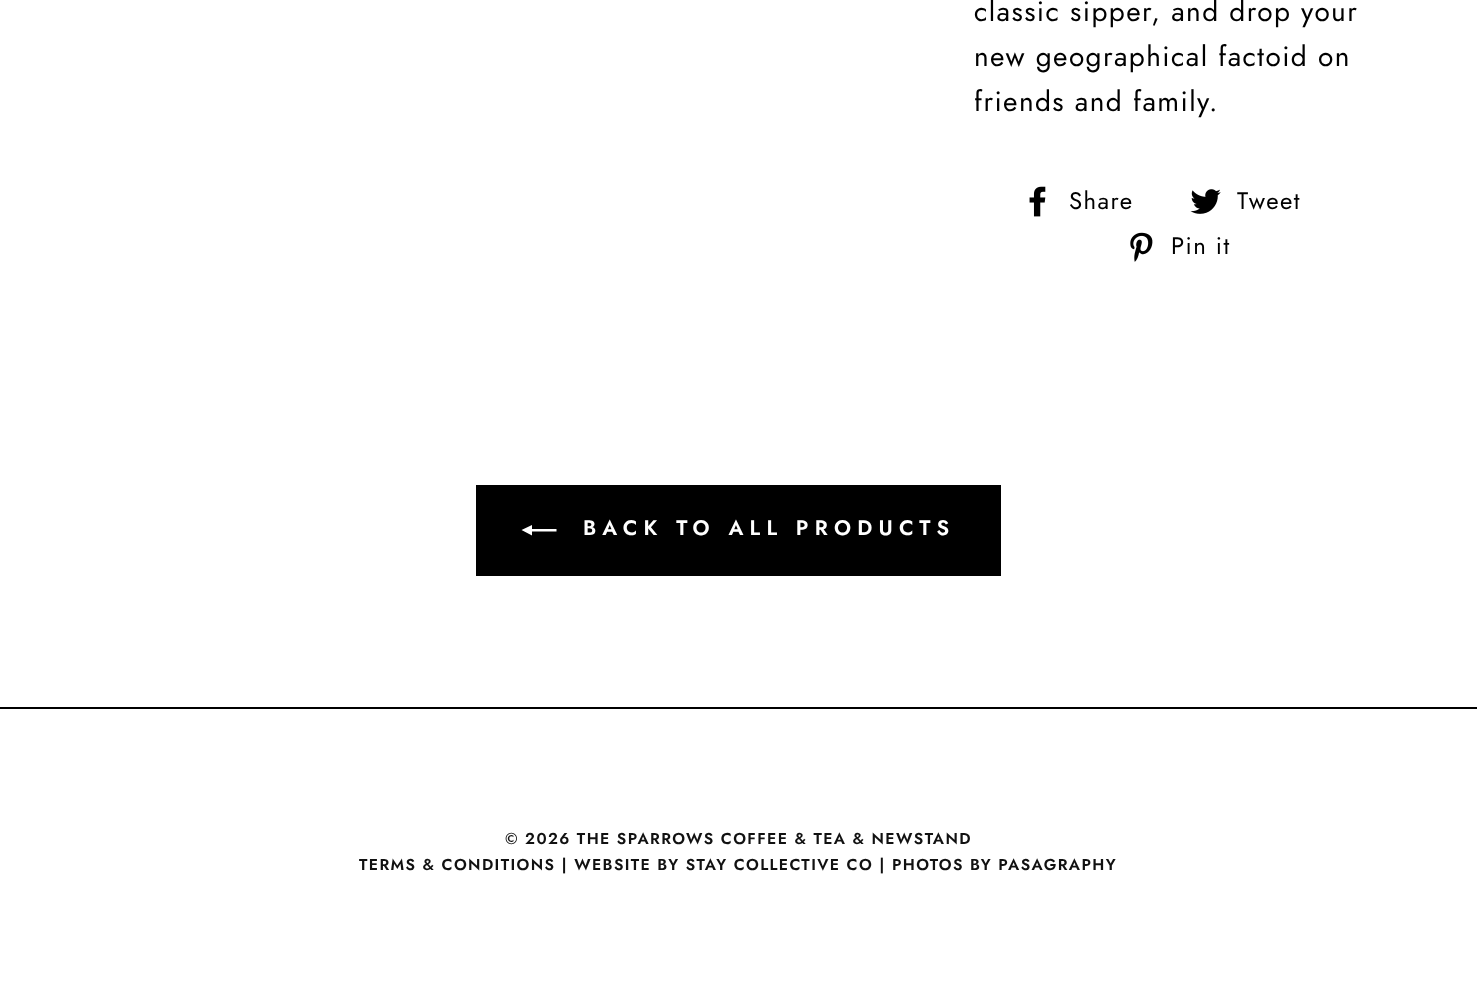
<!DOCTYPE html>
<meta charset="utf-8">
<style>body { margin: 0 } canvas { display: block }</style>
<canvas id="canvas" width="1477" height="995"></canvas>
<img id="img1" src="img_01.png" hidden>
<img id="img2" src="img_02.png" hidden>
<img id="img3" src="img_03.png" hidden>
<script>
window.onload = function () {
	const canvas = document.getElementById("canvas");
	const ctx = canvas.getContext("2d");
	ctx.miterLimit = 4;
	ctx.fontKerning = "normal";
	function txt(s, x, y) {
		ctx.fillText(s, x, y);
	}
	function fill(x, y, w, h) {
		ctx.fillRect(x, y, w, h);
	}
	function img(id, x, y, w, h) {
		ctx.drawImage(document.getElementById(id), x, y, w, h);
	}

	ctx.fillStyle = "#FFFFFF";
	fill(0, 0, 1477, 995);
	img("img1", 1029, 186, 17, 31);
	img("img2", 1190, 189, 31, 25);
	img("img3", 1130, 232, 23, 30);
	ctx.fillStyle = "#000000";
	fill(476, 485, 525, 91);
	ctx.fillStyle = "#FFFFFF";
	ctx.beginPath();
	ctx.moveTo(556.5, 529);
	ctx.lineTo(556.5, 531.5);
	ctx.lineTo(532, 531.5);
	ctx.lineTo(532, 535.5);
	ctx.lineTo(521.5, 530);
	ctx.lineTo(532, 525);
	ctx.lineTo(532, 529);
	ctx.closePath();
	ctx.fill();
	ctx.fillStyle = "#000000";
	fill(0, 707, 1477, 2);
	ctx.letterSpacing = "1.4px";
	ctx.font = "28px Jost";
	txt("classic sipper, and drop your", 974, 21);
	txt("new geographical factoid on", 974, 66);
	txt("friends and family.", 974, 111);
	ctx.font = "24px Jost";
	txt("Share", 1069, 209);
	txt("Tweet", 1237, 209);
	txt("Pin it", 1171, 254);
	ctx.letterSpacing = "6.25px";
	ctx.font = "600 21px Jost";
	ctx.fillStyle = "#FFFFFF";
	txt("BACK TO ALL PRODUCTS", 583, 535);
	ctx.letterSpacing = "1.4px";
	ctx.font = "600 15.75px Jost";
	ctx.fillStyle = "#111111";
	txt("© 2026 THE SPARROWS COFFEE & TEA & NEWSTAND", 505, 844);
	txt("TERMS & CONDITIONS | WEBSITE BY STAY COLLECTIVE CO | PHOTOS BY PASAGRAPHY", 359, 870);
};
</script>
